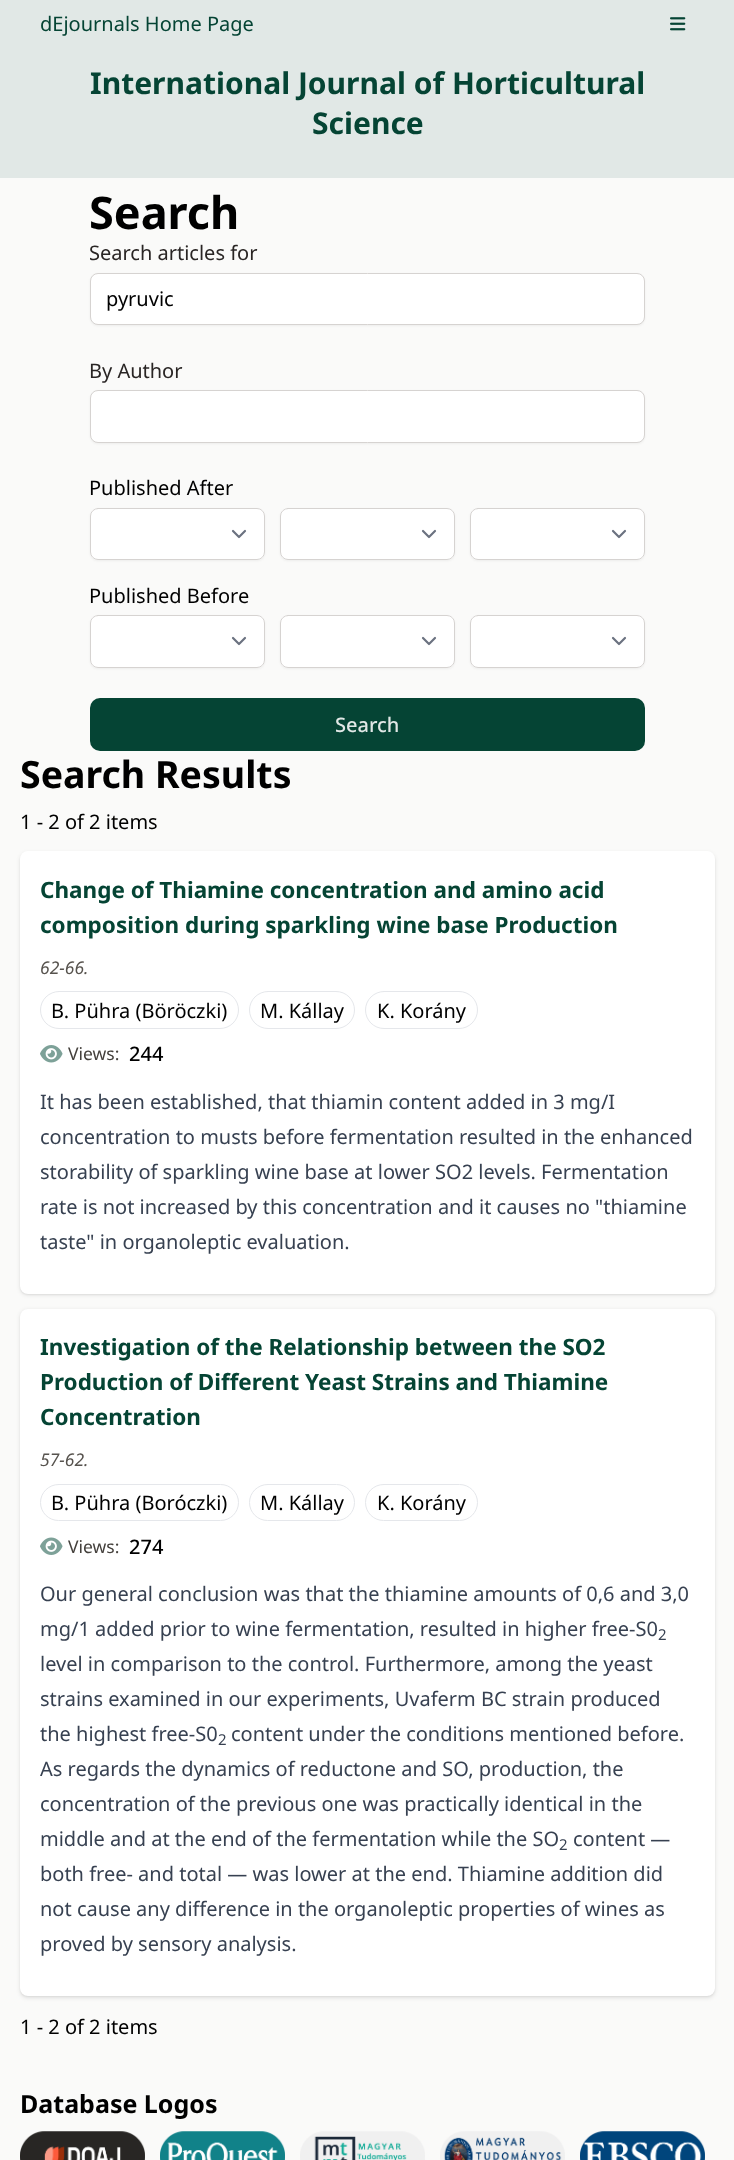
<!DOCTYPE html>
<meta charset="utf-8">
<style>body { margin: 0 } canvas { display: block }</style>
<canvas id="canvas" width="734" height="2160"></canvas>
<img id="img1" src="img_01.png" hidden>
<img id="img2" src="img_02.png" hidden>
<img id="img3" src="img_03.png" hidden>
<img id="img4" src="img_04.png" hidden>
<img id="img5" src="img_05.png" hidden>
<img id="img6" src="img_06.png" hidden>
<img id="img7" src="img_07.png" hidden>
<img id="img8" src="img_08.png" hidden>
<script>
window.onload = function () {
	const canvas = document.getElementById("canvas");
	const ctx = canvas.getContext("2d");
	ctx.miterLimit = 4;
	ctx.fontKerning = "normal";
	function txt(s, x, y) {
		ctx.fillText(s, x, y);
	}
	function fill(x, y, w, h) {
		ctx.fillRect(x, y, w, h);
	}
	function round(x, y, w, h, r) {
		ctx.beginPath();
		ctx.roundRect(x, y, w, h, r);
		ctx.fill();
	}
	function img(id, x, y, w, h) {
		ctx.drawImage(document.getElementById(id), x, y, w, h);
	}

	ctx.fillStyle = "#FAFAF9";
	fill(0, 0, 734, 2160);
	ctx.fillStyle = "#E1E8E6";
	fill(0, 0, 734, 178);
	img("img1", 670, 17, 16, 14);
	ctx.fillStyle = "rgba(0, 0, 0, 0.05)";
	ctx.filter = "blur(1px)";
	ctx.beginPath();
	ctx.roundRect(90, 274, 555, 52, 8);
	ctx.fill();
	ctx.filter = "none";
	ctx.fillStyle = "#FFFFFF";
	ctx.beginPath();
	ctx.roundRect(90.5, 273.5, 554, 51, 7.5);
	ctx.fill();
	ctx.strokeStyle = "#D6D3D1";
	ctx.stroke();
	ctx.fillStyle = "rgba(0, 0, 0, 0.05)";
	ctx.filter = "blur(1px)";
	ctx.beginPath();
	ctx.roundRect(90, 391, 555, 53, 8);
	ctx.fill();
	ctx.filter = "none";
	ctx.fillStyle = "#FFFFFF";
	ctx.beginPath();
	ctx.roundRect(90.5, 390.5, 554, 52, 7.5);
	ctx.fill();
	ctx.stroke();
	ctx.fillStyle = "rgba(0, 0, 0, 0.05)";
	ctx.filter = "blur(1px)";
	ctx.beginPath();
	ctx.roundRect(90, 509, 175, 52, 8);
	ctx.fill();
	ctx.filter = "none";
	ctx.fillStyle = "#FFFFFF";
	round(90, 508, 175, 52, 8);
	ctx.beginPath();
	ctx.moveTo(233, 531);
	ctx.lineTo(239, 537);
	ctx.lineTo(245, 531);
	ctx.strokeStyle = "#6B7280";
	ctx.lineWidth = 2.2;
	ctx.lineCap = "round";
	ctx.lineJoin = "round";
	ctx.stroke();
	ctx.beginPath();
	ctx.roundRect(90.5, 508.5, 174, 51, 7.5);
	ctx.strokeStyle = "#D6D3D1";
	ctx.lineWidth = 1;
	ctx.lineJoin = "miter";
	ctx.stroke();
	ctx.fillStyle = "rgba(0, 0, 0, 0.05)";
	ctx.filter = "blur(1px)";
	ctx.beginPath();
	ctx.roundRect(280, 509, 175, 52, 8);
	ctx.fill();
	ctx.filter = "none";
	ctx.fillStyle = "#FFFFFF";
	round(280, 508, 175, 52, 8);
	ctx.beginPath();
	ctx.moveTo(423, 531);
	ctx.lineTo(429, 537);
	ctx.lineTo(435, 531);
	ctx.strokeStyle = "#6B7280";
	ctx.lineWidth = 2.2;
	ctx.lineJoin = "round";
	ctx.stroke();
	ctx.beginPath();
	ctx.roundRect(280.5, 508.5, 174, 51, 7.5);
	ctx.strokeStyle = "#D6D3D1";
	ctx.lineWidth = 1;
	ctx.lineJoin = "miter";
	ctx.stroke();
	ctx.fillStyle = "rgba(0, 0, 0, 0.05)";
	ctx.filter = "blur(1px)";
	ctx.beginPath();
	ctx.roundRect(470, 509, 175, 52, 8);
	ctx.fill();
	ctx.filter = "none";
	ctx.fillStyle = "#FFFFFF";
	round(470, 508, 175, 52, 8);
	ctx.beginPath();
	ctx.moveTo(613, 531);
	ctx.lineTo(619, 537);
	ctx.lineTo(625, 531);
	ctx.strokeStyle = "#6B7280";
	ctx.lineWidth = 2.2;
	ctx.lineJoin = "round";
	ctx.stroke();
	ctx.beginPath();
	ctx.roundRect(470.5, 508.5, 174, 51, 7.5);
	ctx.strokeStyle = "#D6D3D1";
	ctx.lineWidth = 1;
	ctx.lineJoin = "miter";
	ctx.stroke();
	ctx.fillStyle = "rgba(0, 0, 0, 0.05)";
	ctx.filter = "blur(1px)";
	ctx.beginPath();
	ctx.roundRect(90, 616, 175, 53, 8);
	ctx.fill();
	ctx.filter = "none";
	ctx.fillStyle = "#FFFFFF";
	round(90, 615, 175, 53, 8);
	ctx.beginPath();
	ctx.moveTo(233, 638);
	ctx.lineTo(239, 644);
	ctx.lineTo(245, 638);
	ctx.strokeStyle = "#6B7280";
	ctx.lineWidth = 2.2;
	ctx.lineJoin = "round";
	ctx.stroke();
	ctx.beginPath();
	ctx.roundRect(90.5, 615.5, 174, 52, 7.5);
	ctx.strokeStyle = "#D6D3D1";
	ctx.lineWidth = 1;
	ctx.lineJoin = "miter";
	ctx.stroke();
	ctx.fillStyle = "rgba(0, 0, 0, 0.05)";
	ctx.filter = "blur(1px)";
	ctx.beginPath();
	ctx.roundRect(280, 616, 175, 53, 8);
	ctx.fill();
	ctx.filter = "none";
	ctx.fillStyle = "#FFFFFF";
	round(280, 615, 175, 53, 8);
	ctx.beginPath();
	ctx.moveTo(423, 638);
	ctx.lineTo(429, 644);
	ctx.lineTo(435, 638);
	ctx.strokeStyle = "#6B7280";
	ctx.lineWidth = 2.2;
	ctx.lineJoin = "round";
	ctx.stroke();
	ctx.beginPath();
	ctx.roundRect(280.5, 615.5, 174, 52, 7.5);
	ctx.strokeStyle = "#D6D3D1";
	ctx.lineWidth = 1;
	ctx.lineJoin = "miter";
	ctx.stroke();
	ctx.fillStyle = "rgba(0, 0, 0, 0.05)";
	ctx.filter = "blur(1px)";
	ctx.beginPath();
	ctx.roundRect(470, 616, 175, 53, 8);
	ctx.fill();
	ctx.filter = "none";
	ctx.fillStyle = "#FFFFFF";
	round(470, 615, 175, 53, 8);
	ctx.beginPath();
	ctx.moveTo(613, 638);
	ctx.lineTo(619, 644);
	ctx.lineTo(625, 638);
	ctx.strokeStyle = "#6B7280";
	ctx.lineWidth = 2.2;
	ctx.lineJoin = "round";
	ctx.stroke();
	ctx.beginPath();
	ctx.roundRect(470.5, 615.5, 174, 52, 7.5);
	ctx.strokeStyle = "#D6D3D1";
	ctx.lineWidth = 1;
	ctx.lineJoin = "miter";
	ctx.stroke();
	ctx.fillStyle = "#054434";
	round(90, 698, 555, 53, 10);
	ctx.fillStyle = "rgba(0, 0, 0, 0.1)";
	ctx.filter = "blur(1px)";
	ctx.beginPath();
	ctx.roundRect(21, 854, 693, 440, 6);
	ctx.fill();
	ctx.filter = "none";
	ctx.filter = "blur(2px)";
	ctx.beginPath();
	ctx.roundRect(20, 853, 695, 442, 8);
	ctx.fill();
	ctx.filter = "none";
	ctx.fillStyle = "#FFFFFF";
	round(20, 851, 695, 443, 8);
	ctx.beginPath();
	ctx.roundRect(40.5, 991.5, 198, 37, 18.5);
	ctx.strokeStyle = "#E5E7EB";
	ctx.stroke();
	ctx.beginPath();
	ctx.roundRect(249.5, 991.5, 105, 37, 18.5);
	ctx.stroke();
	ctx.beginPath();
	ctx.roundRect(365.5, 991.5, 112, 37, 18.5);
	ctx.stroke();
	img("img2", 40, 1045, 23, 18);
	ctx.fillStyle = "rgba(0, 0, 0, 0.1)";
	ctx.filter = "blur(1px)";
	ctx.beginPath();
	ctx.roundRect(21, 1311, 693, 685, 6);
	ctx.fill();
	ctx.filter = "none";
	ctx.filter = "blur(2px)";
	ctx.beginPath();
	ctx.roundRect(20, 1310, 695, 688, 8);
	ctx.fill();
	ctx.filter = "none";
	ctx.fillStyle = "#FFFFFF";
	round(20, 1309, 695, 687, 8);
	ctx.beginPath();
	ctx.roundRect(40.5, 1484.5, 198, 36, 18);
	ctx.stroke();
	ctx.beginPath();
	ctx.roundRect(249.5, 1484.5, 105, 36, 18);
	ctx.stroke();
	ctx.beginPath();
	ctx.roundRect(365.5, 1484.5, 112, 36, 18);
	ctx.stroke();
	img("img3", 40, 1537, 23, 18);
	img("img4", 20, 2131, 125, 29);
	img("img5", 160, 2131, 125, 29);
	img("img6", 300, 2131, 125, 29);
	img("img7", 440, 2131, 125, 29);
	img("img8", 580, 2131, 125, 29);
	ctx.font = "20px Noto Sans";
	ctx.fillStyle = "#054434";
	txt("dEjournals Home Page", 40, 31);
	ctx.font = "bold 30px Noto Sans";
	txt("International Journal of Horticultural", 90, 94);
	txt("Science", 312, 134);
	ctx.font = "bold 45px Noto Sans";
	ctx.fillStyle = "#000000";
	txt("Search", 89, 229);
	ctx.font = "20px Noto Sans";
	ctx.fillStyle = "#292524";
	txt("Search articles for", 89, 260);
	ctx.fillStyle = "#000000";
	txt("pyruvic", 106, 306);
	ctx.fillStyle = "#292524";
	txt("By Author", 89, 378);
	ctx.fillStyle = "#000000";
	txt("Published After", 89, 495);
	txt("Published Before", 89, 603);
	ctx.font = "500 20px Noto Sans";
	ctx.fillStyle = "#E1E8E6";
	txt("Search", 335, 732);
	ctx.font = "bold 37.5px Noto Sans";
	ctx.fillStyle = "#000000";
	txt("Search Results", 20, 788);
	ctx.font = "20px Noto Sans";
	txt("1 - 2 of 2 items", 20, 829);
	ctx.font = "bold 22.5px Noto Sans";
	ctx.fillStyle = "#054434";
	txt("Change of Thiamine concentration and amino acid", 40, 898);
	txt("composition during sparkling wine base Production", 40, 933);
	ctx.font = "italic 17.5px Noto Sans";
	ctx.fillStyle = "#57534E";
	txt("62-66.", 40, 974);
	ctx.font = "20px Noto Sans";
	ctx.fillStyle = "#000000";
	txt("B. Pühra (Böröczki)", 51, 1018);
	txt("M. Kállay", 260, 1018);
	txt("K. Korány", 377, 1018);
	ctx.font = "17.5px Noto Sans";
	ctx.fillStyle = "#44403C";
	txt("Views:", 68, 1060);
	ctx.font = "500 20px Noto Sans";
	ctx.fillStyle = "#000000";
	txt("244", 129, 1061);
	ctx.font = "20px Noto Sans";
	ctx.fillStyle = "#374151";
	txt("It has been established, that thiamin content added in 3 mg/I", 40, 1109);
	txt("concentration to musts before fermentation resulted in the enhanced", 40, 1144);
	txt("storability of sparkling wine base at lower SO2 levels. Fermentation", 40, 1179);
	txt("rate is not increased by this concentration and it causes no \"thiamine", 40, 1214);
	txt("taste\" in organoleptic evaluation.", 40, 1249);
	ctx.font = "bold 22.5px Noto Sans";
	ctx.fillStyle = "#054434";
	txt("Investigation of the Relationship between the SO2", 40, 1355);
	txt("Production of Different Yeast Strains and Thiamine", 40, 1390);
	txt("Concentration", 40, 1425);
	ctx.font = "italic 17.5px Noto Sans";
	ctx.fillStyle = "#57534E";
	txt("57-62.", 40, 1466);
	ctx.font = "20px Noto Sans";
	ctx.fillStyle = "#000000";
	txt("B. Pühra (Boróczki)", 51, 1510);
	txt("M. Kállay", 260, 1510);
	txt("K. Korány", 377, 1510);
	ctx.font = "17.5px Noto Sans";
	ctx.fillStyle = "#44403C";
	txt("Views:", 68, 1553);
	ctx.font = "500 20px Noto Sans";
	ctx.fillStyle = "#000000";
	txt("274", 129, 1554);
	ctx.font = "20px Noto Sans";
	ctx.fillStyle = "#374151";
	txt("Our general conclusion was that the thiamine amounts of 0,6 and 3,0", 40, 1601);
	txt("mg/1 added prior to wine fermentation, resulted in higher free-S0", 40, 1636);
	ctx.font = "15px Noto Sans";
	txt("2", 658, 1640);
	ctx.font = "20px Noto Sans";
	txt("level in comparison to the control. Furthermore, among the yeast", 40, 1671);
	txt("strains examined in our experiments, Uvaferm BC strain produced", 40, 1706);
	txt("the highest free-S0", 40, 1741);
	ctx.font = "15px Noto Sans";
	txt("2", 218, 1745);
	ctx.font = "20px Noto Sans";
	txt("content under the conditions mentioned before.", 231, 1741);
	txt("As regards the dynamics of reductone and SO, production, the", 40, 1776);
	txt("concentration of the previous one was practically identical in the", 40, 1811);
	txt("middle and at the end of the fermentation while the SO", 40, 1846);
	ctx.font = "15px Noto Sans";
	txt("2", 559, 1850);
	ctx.font = "20px Noto Sans";
	txt("content —", 573, 1846);
	txt("both free- and total — was lower at the end. Thiamine addition did", 40, 1881);
	txt("not cause any difference in the organoleptic properties of wines as", 40, 1916);
	txt("proved by sensory analysis.", 40, 1951);
	ctx.fillStyle = "#000000";
	txt("1 - 2 of 2 items", 20, 2034);
	ctx.font = "bold 25px Noto Sans";
	txt("Database Logos", 20, 2113);
};
</script>
